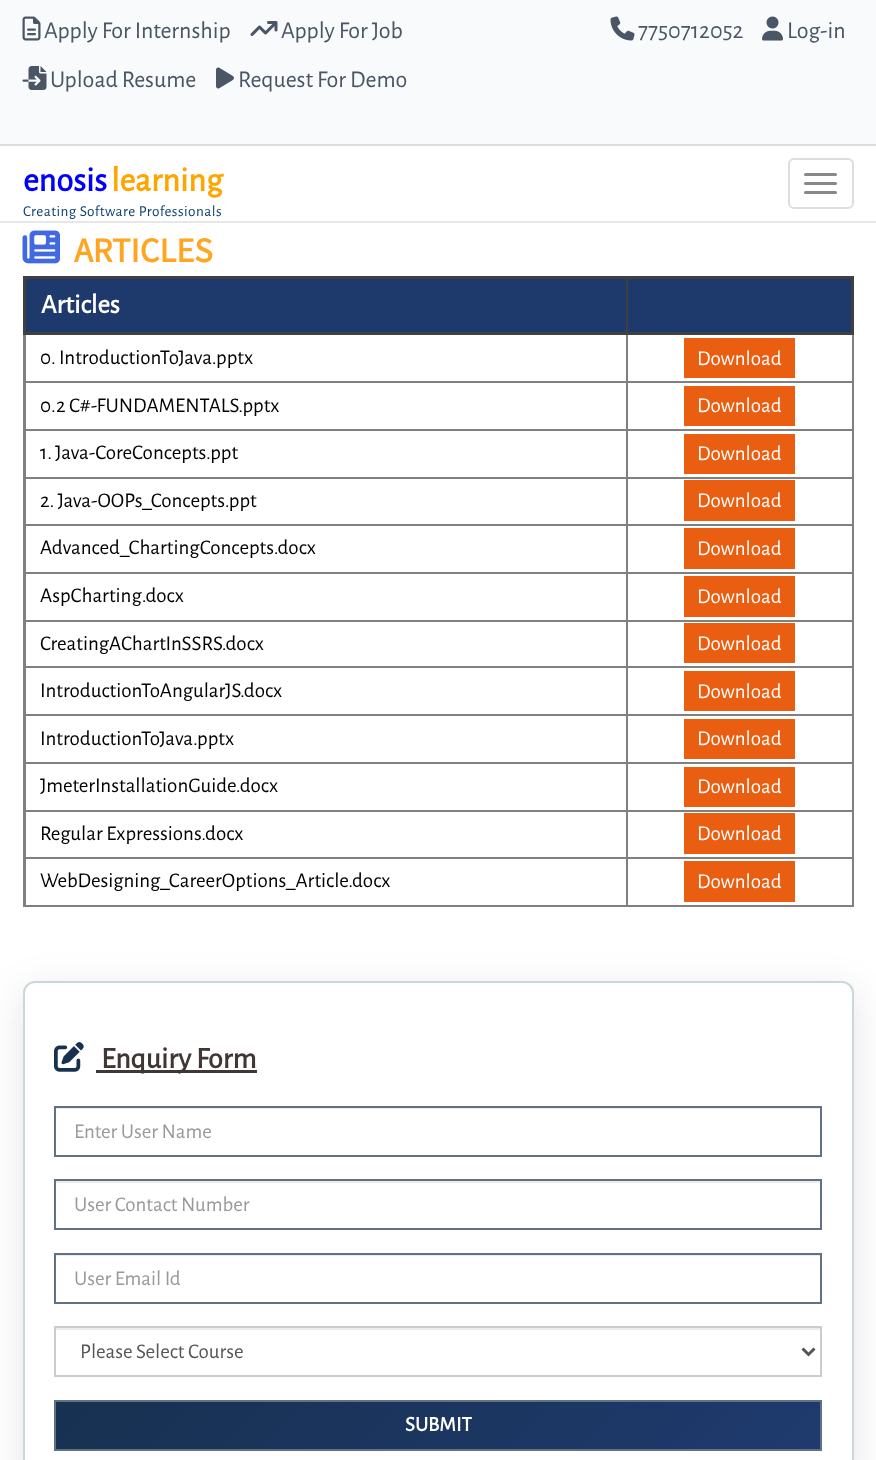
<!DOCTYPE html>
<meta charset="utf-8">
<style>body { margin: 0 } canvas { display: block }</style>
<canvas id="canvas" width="876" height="1460"></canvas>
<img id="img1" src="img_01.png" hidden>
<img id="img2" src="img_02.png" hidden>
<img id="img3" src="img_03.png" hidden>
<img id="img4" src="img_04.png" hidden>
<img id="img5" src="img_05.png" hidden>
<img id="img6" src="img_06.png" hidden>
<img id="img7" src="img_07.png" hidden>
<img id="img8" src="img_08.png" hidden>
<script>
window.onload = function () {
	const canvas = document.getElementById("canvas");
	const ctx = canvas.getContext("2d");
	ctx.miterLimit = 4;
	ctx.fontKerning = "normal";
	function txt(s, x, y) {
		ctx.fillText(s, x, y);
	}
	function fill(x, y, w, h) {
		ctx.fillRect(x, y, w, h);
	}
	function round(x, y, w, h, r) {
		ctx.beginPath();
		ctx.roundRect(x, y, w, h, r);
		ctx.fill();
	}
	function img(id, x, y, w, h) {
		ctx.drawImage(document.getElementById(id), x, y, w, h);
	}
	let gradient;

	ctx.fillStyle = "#FFFFFF";
	fill(0, 0, 876, 1460);
	ctx.fillStyle = "#F9FAFB";
	fill(0, 0, 876, 144);
	ctx.fillStyle = "#DDDDDD";
	fill(0, 144, 876, 2);
	img("img1", 22, 16, 19, 25);
	img("img2", 250, 21, 28, 15);
	img("img3", 22, 66, 25, 24);
	img("img4", 216, 67, 18, 22);
	img("img5", 610, 16, 25, 25);
	img("img6", 762, 16, 21, 25);
	ctx.fillStyle = "#E7E7E7";
	fill(0, 221, 876, 2);
	ctx.beginPath();
	ctx.roundRect(789, 159, 64, 49, 5);
	ctx.strokeStyle = "#DDDDDD";
	ctx.lineWidth = 2;
	ctx.stroke();
	ctx.fillStyle = "#888888";
	round(804, 173, 33, 3, 1.5);
	round(804, 182, 33, 3, 1.5);
	round(804, 191, 33, 3, 1.5);
	img("img7", 22, 230, 38, 34);
	ctx.fillStyle = "#808080";
	fill(852, 335, 2, 571);
	fill(23, 905, 831, 2);
	fill(23, 335, 1, 571);
	fill(626, 381, 228, 2);
	fill(626, 429, 228, 2);
	fill(626, 477, 228, 2);
	fill(626, 524, 228, 2);
	fill(626, 572, 228, 2);
	fill(626, 620, 228, 2);
	fill(626, 666, 228, 2);
	fill(626, 714, 228, 2);
	fill(626, 762, 228, 2);
	fill(626, 810, 228, 2);
	fill(626, 857, 228, 2);
	fill(626, 857, 2, 49);
	fill(24, 857, 603, 2);
	fill(626, 810, 2, 48);
	fill(24, 810, 603, 2);
	fill(626, 762, 2, 50);
	fill(24, 762, 603, 2);
	fill(626, 714, 2, 50);
	fill(24, 714, 603, 2);
	fill(626, 666, 2, 50);
	fill(24, 666, 603, 2);
	fill(626, 620, 2, 48);
	fill(24, 620, 603, 2);
	fill(626, 572, 2, 49);
	fill(24, 572, 603, 2);
	fill(626, 524, 2, 49);
	fill(24, 524, 603, 2);
	fill(626, 477, 2, 48);
	fill(24, 477, 603, 2);
	fill(626, 429, 2, 50);
	fill(24, 429, 603, 2);
	fill(626, 381, 2, 50);
	fill(24, 381, 603, 2);
	fill(626, 333, 2, 50);
	ctx.fillStyle = "#404040";
	fill(626, 276, 2, 59);
	fill(23, 276, 831, 3);
	fill(851, 276, 3, 59);
	ctx.fillStyle = "#808080";
	fill(24, 857, 2, 49);
	fill(24, 810, 2, 48);
	fill(24, 762, 2, 50);
	fill(24, 714, 2, 50);
	fill(24, 666, 2, 50);
	fill(24, 620, 2, 48);
	fill(24, 572, 2, 49);
	fill(24, 524, 2, 49);
	fill(24, 477, 2, 48);
	fill(24, 429, 2, 50);
	fill(24, 333, 2, 98);
	ctx.fillStyle = "#404040";
	fill(23, 332, 831, 3);
	fill(23, 276, 3, 59);
	ctx.fillStyle = "#1E396B";
	fill(26, 279, 600, 53);
	fill(628, 279, 223, 53);
	ctx.fillStyle = "#EA5E12";
	fill(684, 338, 111, 40);
	fill(684, 386, 111, 40);
	fill(684, 434, 111, 40);
	fill(684, 480, 111, 41);
	fill(684, 528, 111, 41);
	fill(684, 576, 111, 41);
	fill(684, 623, 111, 40);
	fill(684, 671, 111, 40);
	fill(684, 719, 111, 40);
	fill(684, 767, 111, 40);
	fill(684, 813, 111, 41);
	fill(684, 861, 111, 41);
	ctx.fillStyle = "rgba(0, 0, 0, 0.1)";
	ctx.filter = "blur(19px)";
	ctx.beginPath();
	ctx.roundRect(23, 990, 831, 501, 12);
	ctx.fill();
	ctx.filter = "none";
	ctx.fillStyle = "#FFFFFF";
	ctx.beginPath();
	ctx.roundRect(24, 982, 829, 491, 11);
	ctx.fill();
	ctx.strokeStyle = "#CBD8DB";
	ctx.stroke();
	img("img8", 54, 1042, 30, 30);
	ctx.fillStyle = "#403633";
	fill(96, 1070, 161, 3);
	ctx.fillStyle = "#ECECEC";
	fill(56, 1108, 765, 1);
	ctx.strokeStyle = "#617284";
	ctx.strokeRect(55, 1107, 766, 49);
	fill(56, 1181, 765, 2);
	ctx.strokeRect(55, 1180, 766, 49);
	fill(56, 1255, 765, 1);
	ctx.strokeRect(55, 1254, 766, 49);
	fill(56, 1328, 765, 2);
	ctx.strokeStyle = "#CCCCCC";
	ctx.strokeRect(55, 1327, 766, 49);
	ctx.beginPath();
	ctx.moveTo(802.5, 1348.5);
	ctx.lineTo(808.5, 1354.5);
	ctx.lineTo(814.5, 1348.5);
	ctx.strokeStyle = "#555555";
	ctx.lineWidth = 3;
	ctx.stroke();
	gradient = ctx.createLinearGradient(235, 1222, 641, 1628);
	gradient.addColorStop(0, "#173151");
	gradient.addColorStop(1, "#1F3A6E");
	ctx.fillStyle = gradient;
	fill(56, 1402, 764, 47);
	ctx.strokeStyle = "#617284";
	ctx.lineWidth = 2;
	ctx.strokeRect(55, 1401, 766, 49);
	ctx.font = "24px Alegreya Sans";
	ctx.fillStyle = "#4A5565";
	txt("Apply For Internship", 44, 38);
	txt("Apply For Job", 281, 38);
	txt("Upload Resume", 50, 87);
	txt("Request For Demo", 238, 87);
	txt("7750712052", 638, 38);
	txt("Log-in", 787, 38);
	ctx.font = "bold 34.5px Alegreya Sans";
	ctx.fillStyle = "#0000FF";
	txt("enosis", 23, 191);
	ctx.fillStyle = "#FFA500";
	txt("learning", 111, 191);
	ctx.letterSpacing = "0.45px";
	ctx.font = "15.25px Alegreya Sans";
	ctx.fillStyle = "#124170";
	txt("Creating Software Professionals", 23, 216);
	ctx.letterSpacing = "0px";
	ctx.font = "bold 34.5px Source Sans Pro";
	ctx.fillStyle = "#FFA521";
	txt("ARTICLES", 74, 262);
	ctx.font = "bold 27px Alegreya Sans";
	ctx.fillStyle = "#FFFFFF";
	txt("Articles", 41, 313);
	ctx.font = "21px Alegreya Sans";
	ctx.fillStyle = "#000000";
	txt("0. IntroductionToJava.pptx", 40, 364);
	ctx.fillStyle = "#FFFFFF";
	txt("Download", 697, 365);
	ctx.fillStyle = "#000000";
	txt("0.2 C#-FUNDAMENTALS.pptx", 40, 412);
	ctx.fillStyle = "#FFFFFF";
	txt("Download", 697, 412);
	ctx.fillStyle = "#000000";
	txt("1. Java-CoreConcepts.ppt", 40, 459);
	ctx.fillStyle = "#FFFFFF";
	txt("Download", 697, 460);
	ctx.fillStyle = "#000000";
	txt("2. Java-OOPs_Concepts.ppt", 40, 507);
	ctx.fillStyle = "#FFFFFF";
	txt("Download", 697, 507);
	ctx.fillStyle = "#000000";
	txt("Advanced_ChartingConcepts.docx", 40, 554);
	ctx.fillStyle = "#FFFFFF";
	txt("Download", 697, 555);
	ctx.fillStyle = "#000000";
	txt("AspCharting.docx", 40, 602);
	ctx.fillStyle = "#FFFFFF";
	txt("Download", 697, 603);
	ctx.fillStyle = "#000000";
	txt("CreatingAChartInSSRS.docx", 40, 650);
	ctx.fillStyle = "#FFFFFF";
	txt("Download", 697, 650);
	ctx.fillStyle = "#000000";
	txt("IntroductionToAngularJS.docx", 40, 697);
	ctx.fillStyle = "#FFFFFF";
	txt("Download", 697, 698);
	ctx.fillStyle = "#000000";
	txt("IntroductionToJava.pptx", 40, 745);
	ctx.fillStyle = "#FFFFFF";
	txt("Download", 697, 745);
	ctx.fillStyle = "#000000";
	txt("JmeterInstallationGuide.docx", 40, 792);
	ctx.fillStyle = "#FFFFFF";
	txt("Download", 697, 793);
	ctx.fillStyle = "#000000";
	txt("Regular Expressions.docx", 40, 840);
	ctx.fillStyle = "#FFFFFF";
	txt("Download", 697, 840);
	ctx.fillStyle = "#000000";
	txt("WebDesigning_CareerOptions_Article.docx", 40, 887);
	ctx.fillStyle = "#FFFFFF";
	txt("Download", 697, 888);
	ctx.font = "bold 30px Alegreya Sans";
	ctx.fillStyle = "#403633";
	txt("Enquiry Form", 101, 1068);
	ctx.font = "21px Alegreya Sans";
	ctx.fillStyle = "#999999";
	txt("Enter User Name", 74, 1138);
	txt("User Contact Number", 74, 1211);
	txt("User Email Id", 74, 1285);
	ctx.fillStyle = "#555555";
	txt("Please Select Course", 80, 1358);
	ctx.font = "bold 21px Alegreya Sans";
	ctx.fillStyle = "#FFFFFF";
	txt("SUBMIT", 405, 1431);
};
</script>
